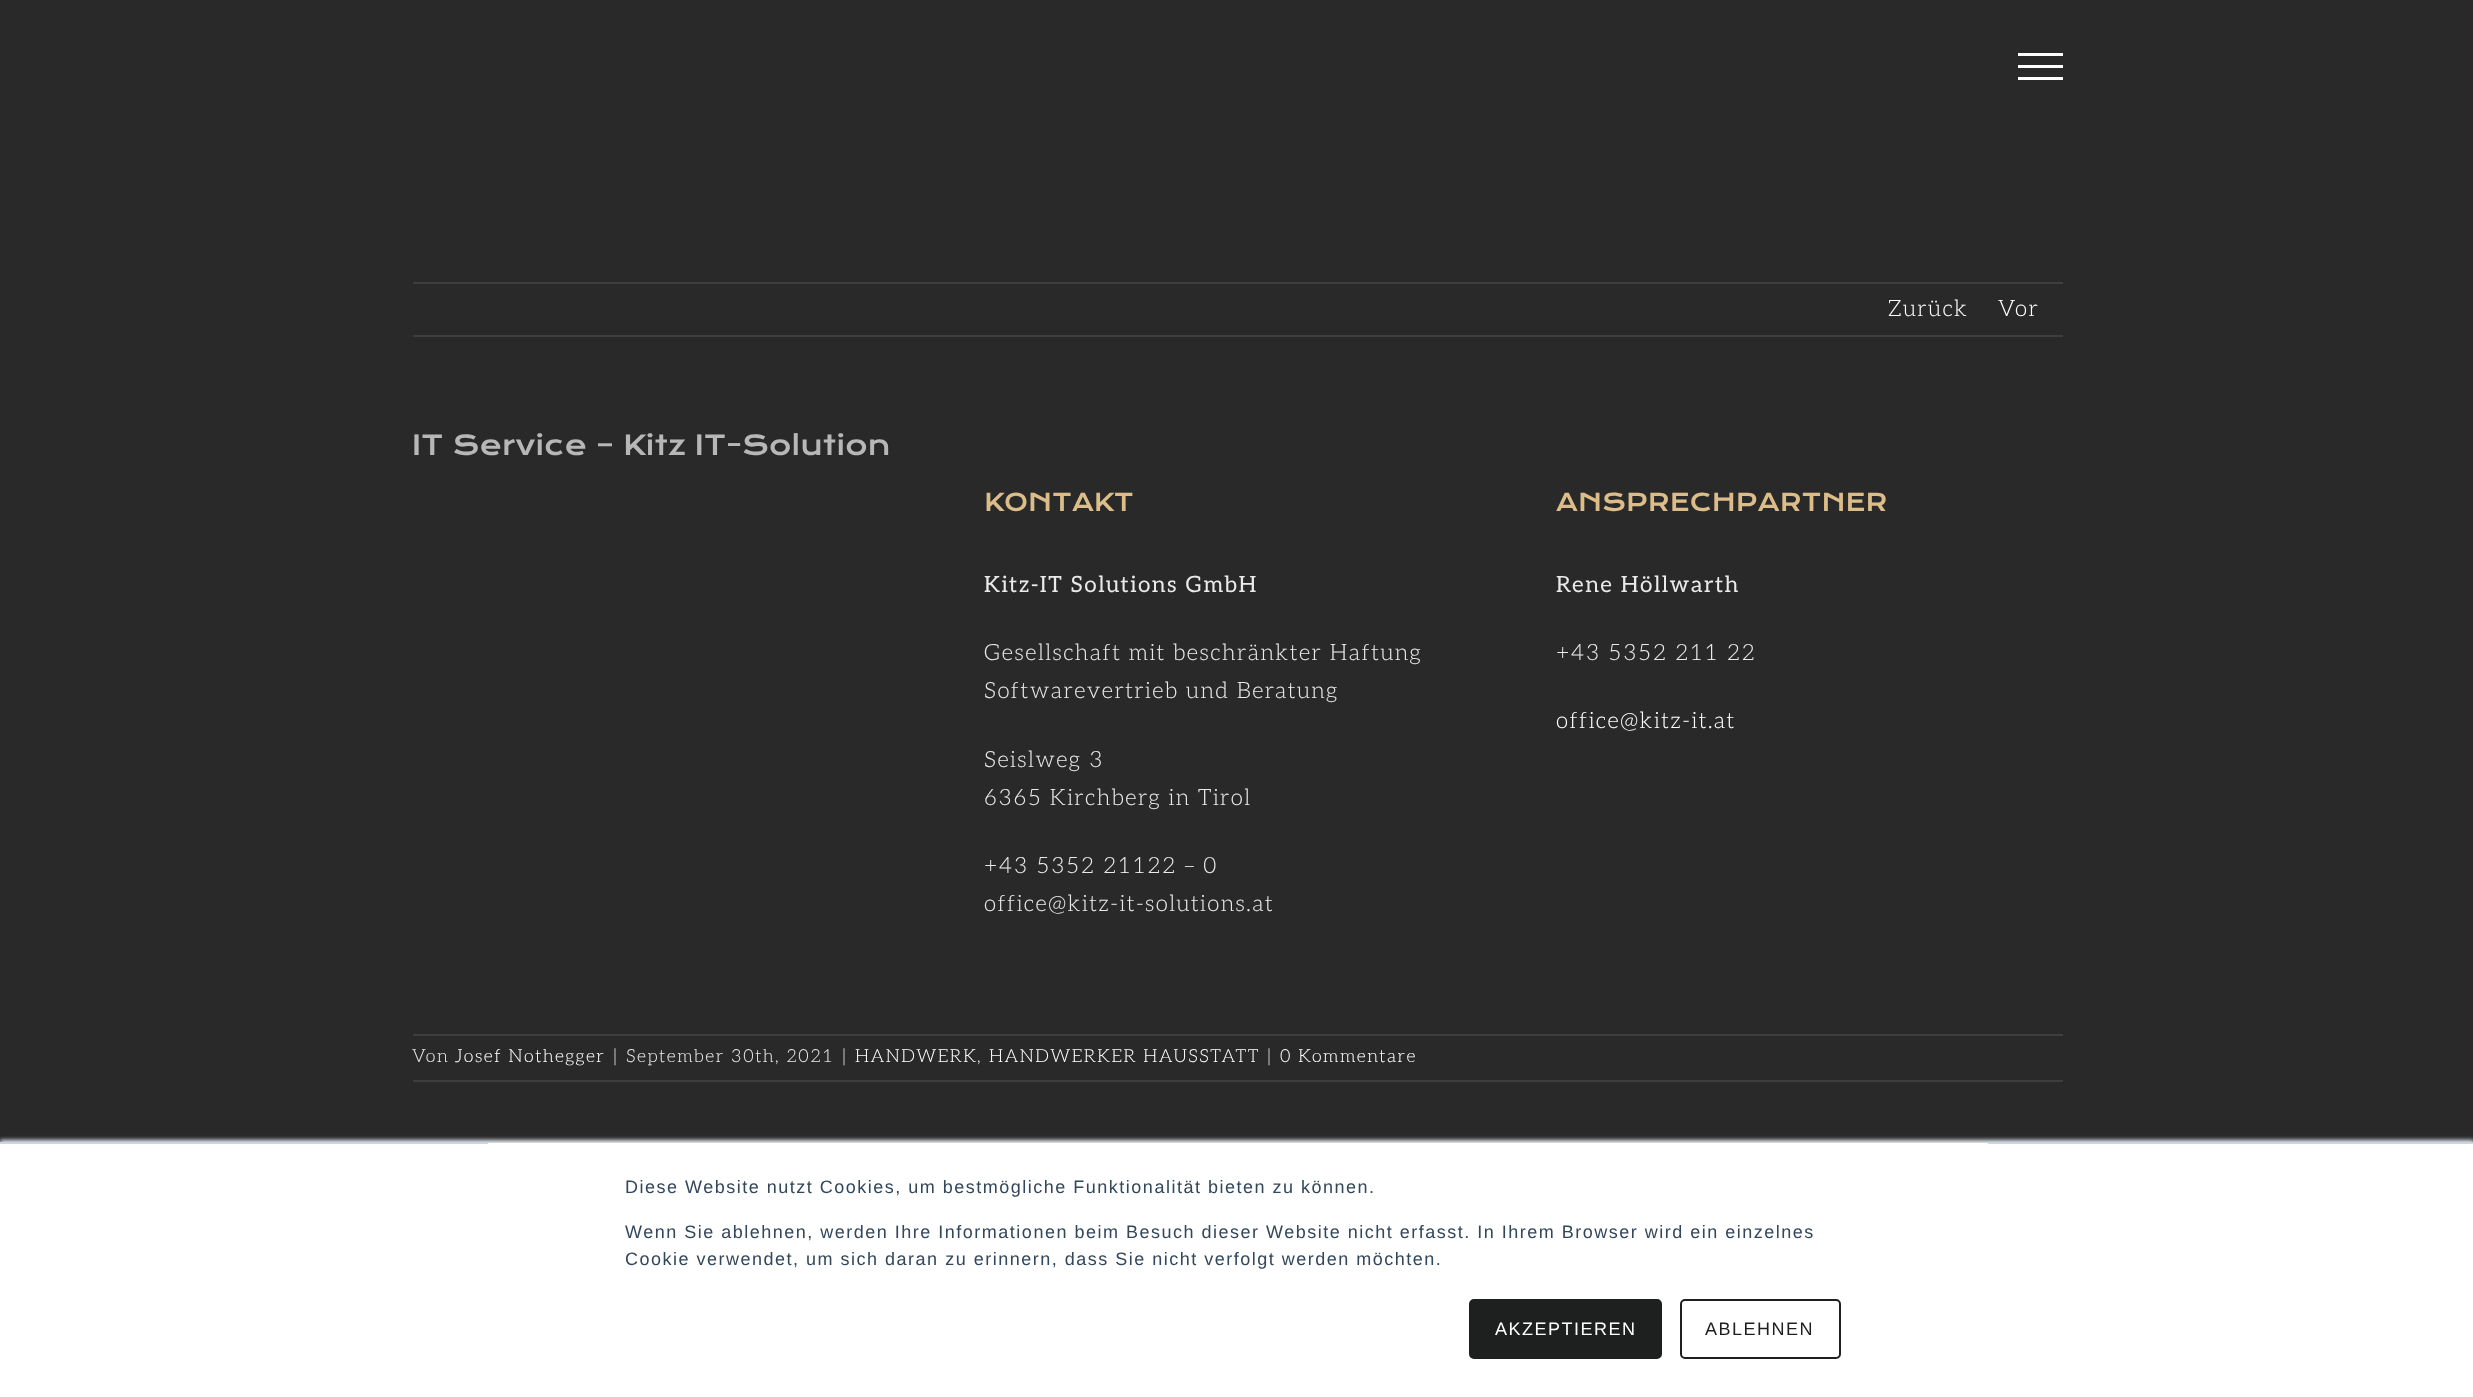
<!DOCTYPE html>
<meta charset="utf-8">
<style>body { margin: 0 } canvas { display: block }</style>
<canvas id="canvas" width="2473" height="1397"></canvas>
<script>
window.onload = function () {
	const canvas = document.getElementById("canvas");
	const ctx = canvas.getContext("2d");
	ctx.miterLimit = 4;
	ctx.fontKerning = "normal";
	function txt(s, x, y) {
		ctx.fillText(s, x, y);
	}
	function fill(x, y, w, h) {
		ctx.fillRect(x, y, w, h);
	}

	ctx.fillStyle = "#29292A";
	fill(0, 0, 2473, 1397);
	ctx.fillStyle = "#FFFFFF";
	fill(2018, 53, 45, 3);
	fill(2018, 65, 45, 3);
	fill(2018, 77, 45, 3);
	ctx.fillStyle = "#3E3E3E";
	fill(413, 282, 1650, 2);
	fill(413, 335, 1650, 2);
	fill(413, 1034, 1650, 2);
	fill(413, 1080, 1650, 2);
	ctx.fillStyle = "#EAF0F6";
	ctx.filter = "blur(2px)";
	ctx.beginPath();
	ctx.rect(0, 1140, 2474, 257);
	ctx.fill();
	ctx.filter = "none";
	ctx.fillStyle = "#FFFFFF";
	fill(0, 1144, 2473, 253);
	ctx.fillStyle = "#CBD6E2";
	fill(0, 1142, 2473, 2);
	ctx.fillStyle = "#FFFFFF";
	fill(488, 1143, 1500, 1);
	ctx.fillStyle = "#1E1F1F";
	ctx.beginPath();
	ctx.roundRect(1470, 1300, 191, 58, 4);
	ctx.fill();
	ctx.strokeStyle = "#1E1F1F";
	ctx.lineWidth = 2;
	ctx.stroke();
	ctx.beginPath();
	ctx.roundRect(1681, 1300, 159, 58, 4);
	ctx.stroke();
	ctx.letterSpacing = "1.5px";
	ctx.font = "300 22.5px Aleo";
	ctx.fillStyle = "#FFFFFF";
	txt("Zurück", 1888, 316);
	txt("Vor", 1998, 316);
	ctx.letterSpacing = "0px";
	ctx.font = "27px Krona One";
	ctx.fillStyle = "#B7B7B7";
	txt("IT Service – Kitz IT-Solution", 412, 455);
	ctx.font = "24px Krona One";
	ctx.fillStyle = "#DCBD8A";
	txt("KONTAKT", 984, 511);
	ctx.letterSpacing = "1.5px";
	ctx.font = "22.5px Aleo";
	ctx.fillStyle = "#EAEAEA";
	txt("Kitz-IT Solutions GmbH", 984, 592);
	ctx.font = "300 22.5px Aleo";
	txt("Gesellschaft mit beschränkter Haftung", 984, 660);
	txt("Softwarevertrieb und Beratung", 984, 698);
	txt("Seislweg 3", 984, 767);
	txt("6365 Kirchberg in Tirol", 984, 805);
	txt("+43 5352 21122 – 0", 984, 873);
	txt("office@kitz-it-solutions.at", 984, 911);
	ctx.letterSpacing = "0px";
	ctx.font = "24px Krona One";
	ctx.fillStyle = "#DCBD8A";
	txt("ANSPRECHPARTNER", 1556, 511);
	ctx.letterSpacing = "1.5px";
	ctx.font = "22.5px Aleo";
	ctx.fillStyle = "#EAEAEA";
	txt("Rene Höllwarth", 1556, 592);
	ctx.font = "300 22.5px Aleo";
	txt("+43 5352 211 22", 1556, 660);
	ctx.fillStyle = "#FFFFFF";
	txt("office@kitz-it.at", 1556, 728);
	ctx.font = "300 18px Aleo";
	ctx.fillStyle = "#EAEAEA";
	txt("Von", 412, 1062);
	ctx.fillStyle = "#FFFFFF";
	txt("Josef Nothegger", 455, 1062);
	ctx.fillStyle = "#EAEAEA";
	txt("|", 613, 1062);
	txt("September 30th, 2021", 626, 1062);
	txt("|", 842, 1062);
	ctx.fillStyle = "#FFFFFF";
	txt("HANDWERK", 855, 1062);
	ctx.fillStyle = "#EAEAEA";
	txt(",", 977, 1062);
	ctx.fillStyle = "#FFFFFF";
	txt("HANDWERKER HAUSSTATT", 989, 1062);
	ctx.fillStyle = "#EAEAEA";
	txt("|", 1267, 1062);
	ctx.fillStyle = "#FFFFFF";
	txt("0 Kommentare", 1280, 1062);
	ctx.font = "18px Liberation Sans";
	ctx.fillStyle = "#33475B";
	txt("Diese Website nutzt Cookies, um bestmögliche Funktionalität bieten zu können.", 625, 1193);
	txt("Wenn Sie ablehnen, werden Ihre Informationen beim Besuch dieser Website nicht erfasst. In Ihrem Browser wird ein einzelnes", 625, 1238);
	txt("Cookie verwendet, um sich daran zu erinnern, dass Sie nicht verfolgt werden möchten.", 625, 1265);
	ctx.fillStyle = "#FFFFFF";
	txt("AKZEPTIEREN", 1495, 1335);
	ctx.fillStyle = "#1E1F1F";
	txt("ABLEHNEN", 1705, 1335);
};
</script>
